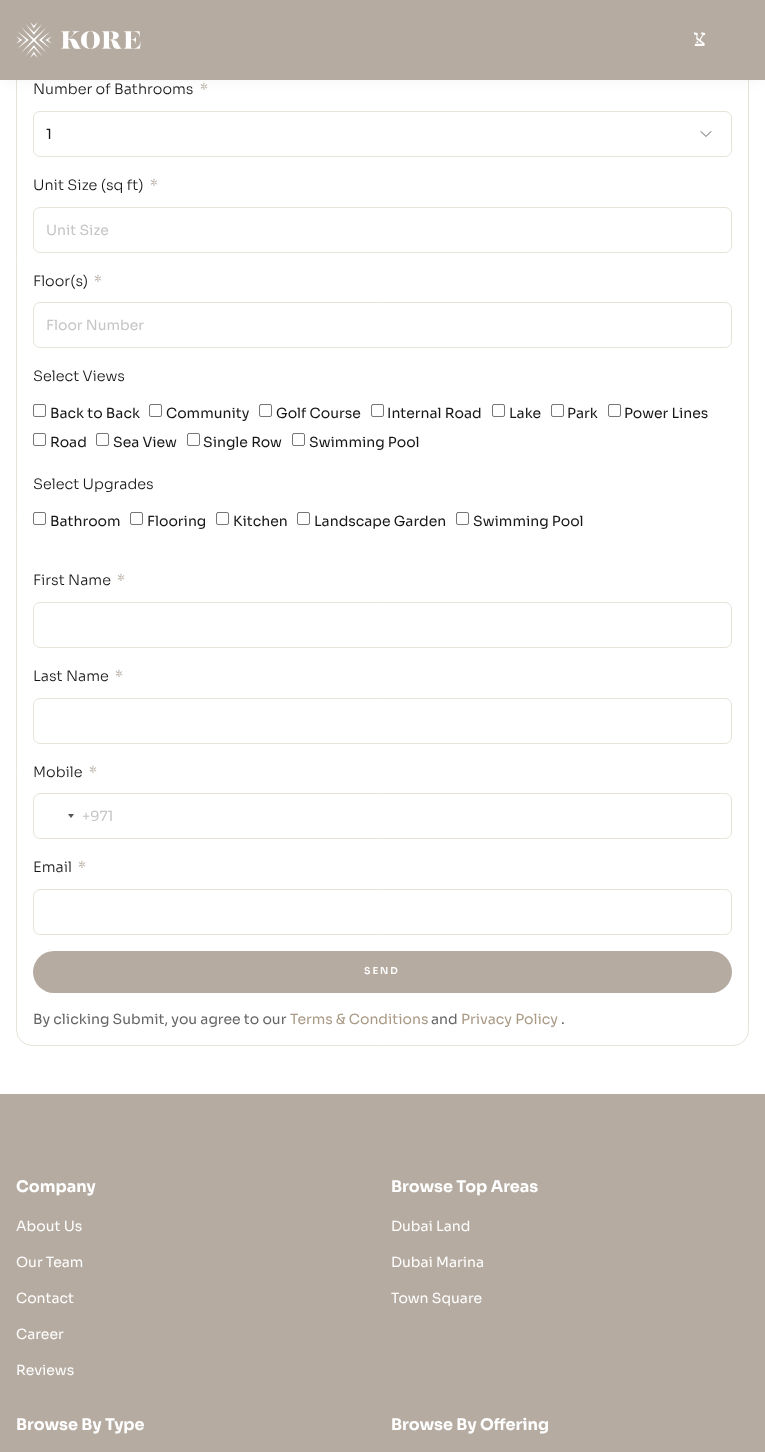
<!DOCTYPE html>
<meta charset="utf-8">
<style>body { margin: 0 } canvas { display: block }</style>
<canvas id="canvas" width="765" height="1452"></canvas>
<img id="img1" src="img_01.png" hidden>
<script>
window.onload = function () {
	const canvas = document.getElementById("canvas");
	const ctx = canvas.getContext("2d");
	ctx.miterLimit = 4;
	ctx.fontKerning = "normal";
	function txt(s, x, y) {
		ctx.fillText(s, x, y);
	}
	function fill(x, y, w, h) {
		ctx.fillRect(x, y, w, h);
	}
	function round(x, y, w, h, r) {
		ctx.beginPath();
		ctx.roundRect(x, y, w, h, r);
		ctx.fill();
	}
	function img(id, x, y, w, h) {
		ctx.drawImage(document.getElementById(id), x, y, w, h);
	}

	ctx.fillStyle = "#FFFFFF";
	fill(0, 0, 765, 1452);
	ctx.beginPath();
	ctx.roundRect(16.5, -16.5, 732, 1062, 15.5);
	ctx.strokeStyle = "#E7E3D9";
	ctx.stroke();
	ctx.fillStyle = "rgba(37, 35, 35, 0.1)";
	ctx.filter = "blur(8px)";
	ctx.beginPath();
	ctx.rect(4, 4, 757, 72);
	ctx.fill();
	ctx.filter = "none";
	ctx.fillStyle = "#B5ABA1";
	fill(0, 0, 765, 80);
	img("img1", 16, 22, 125, 36);
	ctx.beginPath();
	ctx.roundRect(33.5, 111.5, 698, 45, 6.5);
	ctx.stroke();
	ctx.beginPath();
	ctx.moveTo(711, 131.5);
	ctx.lineTo(706, 136.5);
	ctx.lineTo(701, 131.5);
	ctx.strokeStyle = "#616161";
	ctx.lineCap = "round";
	ctx.lineJoin = "round";
	ctx.stroke();
	ctx.beginPath();
	ctx.roundRect(33.5, 207.5, 698, 45, 6.5);
	ctx.strokeStyle = "#E7E3D9";
	ctx.lineJoin = "miter";
	ctx.stroke();
	ctx.beginPath();
	ctx.roundRect(33.5, 302.5, 698, 45, 6.5);
	ctx.stroke();
	ctx.beginPath();
	ctx.roundRect(33.5, 404.5, 12, 12, 1.5);
	ctx.strokeStyle = "#767676";
	ctx.stroke();
	ctx.beginPath();
	ctx.roundRect(149.5, 404.5, 12, 12, 1.5);
	ctx.stroke();
	ctx.beginPath();
	ctx.roundRect(259.5, 404.5, 12, 12, 1.5);
	ctx.stroke();
	ctx.beginPath();
	ctx.roundRect(371.5, 404.5, 12, 12, 1.5);
	ctx.stroke();
	ctx.beginPath();
	ctx.roundRect(492.5, 404.5, 12, 12, 1.5);
	ctx.stroke();
	ctx.beginPath();
	ctx.roundRect(551.5, 404.5, 12, 12, 1.5);
	ctx.stroke();
	ctx.beginPath();
	ctx.roundRect(608.5, 404.5, 12, 12, 1.5);
	ctx.stroke();
	ctx.beginPath();
	ctx.roundRect(33.5, 433.5, 12, 12, 1.5);
	ctx.stroke();
	ctx.beginPath();
	ctx.roundRect(96.5, 433.5, 12, 12, 1.5);
	ctx.stroke();
	ctx.beginPath();
	ctx.roundRect(187.5, 433.5, 12, 12, 1.5);
	ctx.stroke();
	ctx.beginPath();
	ctx.roundRect(292.5, 433.5, 12, 12, 1.5);
	ctx.stroke();
	ctx.beginPath();
	ctx.roundRect(33.5, 512.5, 12, 12, 1.5);
	ctx.stroke();
	ctx.beginPath();
	ctx.roundRect(130.5, 512.5, 12, 12, 1.5);
	ctx.stroke();
	ctx.beginPath();
	ctx.roundRect(216.5, 512.5, 12, 12, 1.5);
	ctx.stroke();
	ctx.beginPath();
	ctx.roundRect(297.5, 512.5, 12, 12, 1.5);
	ctx.stroke();
	ctx.beginPath();
	ctx.roundRect(456.5, 512.5, 12, 12, 1.5);
	ctx.stroke();
	ctx.beginPath();
	ctx.roundRect(33.5, 602.5, 698, 45, 6.5);
	ctx.strokeStyle = "#E7E3D9";
	ctx.stroke();
	ctx.beginPath();
	ctx.roundRect(33.5, 698.5, 698, 45, 6.5);
	ctx.stroke();
	ctx.beginPath();
	ctx.roundRect(33.5, 793.5, 698, 45, 6.5);
	ctx.stroke();
	ctx.save();
	ctx.beginPath();
	ctx.moveTo(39, 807);
	ctx.lineTo(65, 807);
	ctx.lineTo(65, 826);
	ctx.lineTo(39, 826);
	ctx.closePath();
	ctx.moveTo(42, 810);
	ctx.lineTo(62, 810);
	ctx.lineTo(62, 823);
	ctx.lineTo(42, 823);
	ctx.closePath();
	ctx.clip("evenodd");
	ctx.fillStyle = "#888888";
	ctx.filter = "blur(0.5px)";
	ctx.beginPath();
	ctx.rect(42, 810, 20, 13);
	ctx.fill();
	ctx.filter = "none";
	ctx.restore();
	ctx.fillStyle = "#555555";
	ctx.beginPath();
	ctx.moveTo(68, 814);
	ctx.lineTo(74, 814);
	ctx.lineTo(71, 818);
	ctx.closePath();
	ctx.fill();
	ctx.beginPath();
	ctx.roundRect(33.5, 889.5, 698, 45, 6.5);
	ctx.stroke();
	ctx.fillStyle = "#B5ABA1";
	round(33, 951, 699, 42, 21);
	fill(0, 1094, 765, 358);
	ctx.direction = "rtl";
	ctx.font = "24px Liberation Serif";
	ctx.fillStyle = "#FFFFFF";
	txt("צּ", 706, 46);
	ctx.direction = "ltr";
	ctx.font = "300 14.4px Sora";
	ctx.fillStyle = "#161618";
	txt("Number of Bathrooms", 33, 94);
	ctx.fillStyle = "#B5ABA1";
	txt("*", 200, 94);
	ctx.font = "14px Sora";
	ctx.fillStyle = "#161618";
	txt("1", 46, 139);
	ctx.font = "300 14.4px Sora";
	txt("Unit Size (sq ft)", 33, 190);
	ctx.fillStyle = "#B5ABA1";
	txt("*", 150, 190);
	ctx.font = "14px Sora";
	ctx.fillStyle = "#C5C5C5";
	txt("Unit Size", 46, 235);
	ctx.font = "300 14.4px Sora";
	ctx.fillStyle = "#161618";
	txt("Floor(s)", 33, 286);
	ctx.fillStyle = "#B5ABA1";
	txt("*", 94, 286);
	ctx.font = "14px Sora";
	ctx.fillStyle = "#C5C5C5";
	txt("Floor Number", 46, 330);
	ctx.font = "300 14.4px Sora";
	ctx.fillStyle = "#161618";
	txt("Select Views", 33, 381);
	ctx.font = "14px Sora";
	txt("Back to Back", 50, 418);
	txt("Community", 166, 418);
	txt("Golf Course", 276, 418);
	txt("Internal Road", 387, 418);
	txt("Lake", 509, 418);
	txt("Park", 567, 418);
	txt("Power Lines", 624, 418);
	txt("Road", 50, 447);
	txt("Sea View", 113, 447);
	txt("Single Row", 203, 447);
	txt("Swimming Pool", 309, 447);
	ctx.font = "300 14.4px Sora";
	txt("Select Upgrades", 33, 489);
	ctx.font = "14px Sora";
	txt("Bathroom", 50, 526);
	txt("Flooring", 147, 526);
	txt("Kitchen", 233, 526);
	txt("Landscape Garden", 314, 526);
	txt("Swimming Pool", 473, 526);
	ctx.font = "300 14.4px Sora";
	txt("First Name", 33, 585);
	ctx.fillStyle = "#B5ABA1";
	txt("*", 117, 585);
	ctx.fillStyle = "#161618";
	txt("Last Name", 33, 681);
	ctx.fillStyle = "#B5ABA1";
	txt("*", 115, 681);
	ctx.fillStyle = "#161618";
	txt("Mobile", 33, 777);
	ctx.fillStyle = "#B5ABA1";
	txt("*", 89, 777);
	ctx.font = "14px Sora";
	ctx.fillStyle = "#C5C5C5";
	txt("+971", 82, 821);
	ctx.font = "300 14.4px Sora";
	ctx.fillStyle = "#161618";
	txt("Email", 33, 872);
	ctx.fillStyle = "#B5ABA1";
	txt("*", 78, 872);
	ctx.letterSpacing = "2px";
	ctx.font = "600 9.5px Sora";
	ctx.fillStyle = "#FFFFFF";
	txt("SEND", 364, 974);
	ctx.letterSpacing = "0px";
	ctx.font = "14px Sora";
	ctx.fillStyle = "#666565";
	txt("By clicking Submit, you agree to our", 33, 1024);
	ctx.fillStyle = "#A99985";
	txt("Terms & Conditions", 290, 1024);
	ctx.fillStyle = "#666565";
	txt("and", 431, 1024);
	ctx.fillStyle = "#A99985";
	txt("Privacy Policy", 461, 1024);
	ctx.fillStyle = "#666565";
	txt(".", 561, 1024);
	ctx.font = "bold 16px Sora";
	ctx.fillStyle = "#FFFFFF";
	txt("Company", 16, 1192);
	ctx.font = "14px Sora";
	txt("About Us", 16, 1231);
	txt("Our Team", 16, 1267);
	txt("Contact", 16, 1303);
	txt("Career", 16, 1339);
	txt("Reviews", 16, 1375);
	ctx.font = "bold 16px Sora";
	txt("Browse Top Areas", 391, 1192);
	ctx.font = "14px Sora";
	txt("Dubai Land", 391, 1231);
	txt("Dubai Marina", 391, 1267);
	txt("Town Square", 391, 1303);
	ctx.font = "bold 16px Sora";
	txt("Browse By Type", 16, 1430);
	txt("Browse By Offering", 391, 1430);
};
</script>
